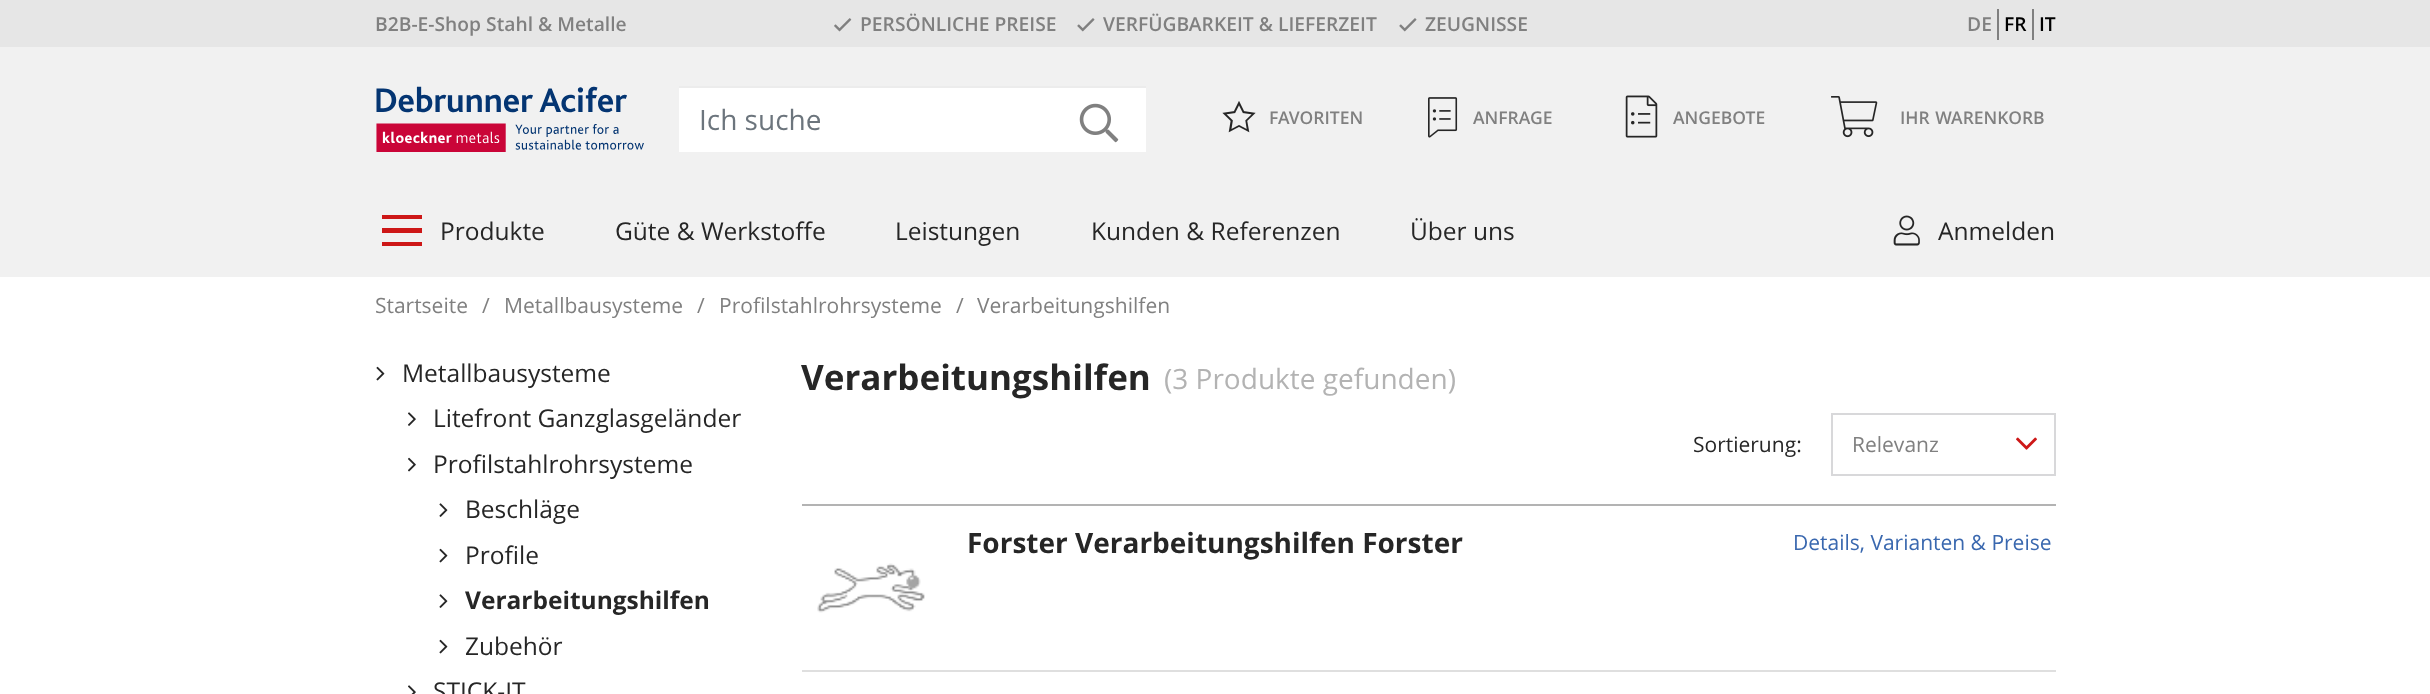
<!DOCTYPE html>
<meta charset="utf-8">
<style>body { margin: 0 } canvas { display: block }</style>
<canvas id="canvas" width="2430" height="694"></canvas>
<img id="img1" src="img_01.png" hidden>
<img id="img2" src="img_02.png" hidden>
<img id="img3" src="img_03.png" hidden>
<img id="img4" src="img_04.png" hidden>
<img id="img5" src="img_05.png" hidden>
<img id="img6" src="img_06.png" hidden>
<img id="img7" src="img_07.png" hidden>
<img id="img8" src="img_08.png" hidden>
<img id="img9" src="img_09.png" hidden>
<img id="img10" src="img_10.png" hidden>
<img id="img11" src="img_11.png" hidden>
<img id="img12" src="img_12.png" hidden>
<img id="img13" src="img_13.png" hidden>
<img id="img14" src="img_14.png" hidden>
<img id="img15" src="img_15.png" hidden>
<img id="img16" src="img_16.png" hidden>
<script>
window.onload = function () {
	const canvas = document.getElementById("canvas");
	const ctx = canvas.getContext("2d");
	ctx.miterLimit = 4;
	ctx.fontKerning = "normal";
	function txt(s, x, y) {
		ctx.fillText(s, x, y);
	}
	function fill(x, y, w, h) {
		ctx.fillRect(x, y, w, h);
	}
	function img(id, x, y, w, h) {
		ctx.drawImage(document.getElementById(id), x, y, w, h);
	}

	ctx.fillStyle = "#FFFFFF";
	fill(0, 0, 2430, 694);
	ctx.fillStyle = "#E6E6E6";
	fill(0, 0, 2430, 47);
	img("img1", 834, 18, 18, 14);
	img("img2", 1077, 18, 18, 14);
	img("img2", 1399, 18, 18, 14);
	ctx.fillStyle = "#808080";
	fill(1997, 9, 2, 31);
	fill(2032, 9, 2, 31);
	ctx.fillStyle = "#F1F1F1";
	fill(0, 47, 2430, 230);
	img("img3", 376, 86, 268, 66);
	ctx.fillStyle = "#FFFFFF";
	fill(679, 88, 467, 64);
	ctx.fillStyle = "#ECECEC";
	fill(679, 86, 467, 2);
	img("img4", 1079, 103, 40, 40);
	img("img5", 1222, 101, 34, 32);
	img("img6", 1428, 97, 30, 41);
	img("img7", 1625, 95, 33, 43);
	img("img8", 1831, 96, 47, 42);
	ctx.fillStyle = "#CD1717";
	ctx.beginPath();
	ctx.moveTo(382, 233);
	ctx.lineTo(422, 233);
	ctx.lineTo(422, 228);
	ctx.lineTo(382, 228);
	ctx.closePath();
	ctx.moveTo(382, 246);
	ctx.lineTo(422, 246);
	ctx.lineTo(422, 242);
	ctx.lineTo(382, 242);
	ctx.closePath();
	ctx.moveTo(382, 215);
	ctx.lineTo(382, 219);
	ctx.lineTo(422, 219);
	ctx.lineTo(422, 215);
	ctx.closePath();
	ctx.fill();
	img("img9", 1893, 215, 27, 31);
	img("img10", 376, 366, 9, 15);
	img("img11", 408, 412, 8, 14);
	img("img12", 408, 457, 8, 15);
	img("img13", 439, 503, 9, 14);
	img("img10", 439, 548, 9, 15);
	img("img13", 439, 594, 9, 14);
	img("img10", 439, 639, 9, 15);
	img("img14", 408, 685, 8, 9);
	ctx.fillStyle = "#B3B3B3";
	fill(802, 504, 1254, 2);
	img("img15", 2016, 437, 21, 13);
	ctx.strokeStyle = "#D8D8DA";
	ctx.lineWidth = 2;
	ctx.strokeRect(1832, 414, 223, 61);
	ctx.fillStyle = "#DFDFDF";
	fill(802, 670, 1254, 2);
	img("img16", 817, 563, 108, 50);
	ctx.font = "600 19.25px Open Sans";
	ctx.fillStyle = "#808080";
	txt("B2B-E-Shop Stahl & Metalle", 375, 31);
	txt("PERSÖNLICHE PREISE", 860, 31);
	txt("VERFÜGBARKEIT & LIEFERZEIT", 1103, 31);
	txt("ZEUGNISSE", 1425, 31);
	txt("DE", 1967, 31);
	ctx.fillStyle = "#000000";
	txt("FR", 2004, 31);
	txt("IT", 2039, 31);
	ctx.font = "28px Open Sans";
	ctx.fillStyle = "#6C757D";
	txt("Ich suche", 699, 130);
	ctx.font = "600 17.5px Open Sans";
	ctx.fillStyle = "#808080";
	txt("FAVORITEN", 1269, 124);
	txt("ANFRAGE", 1473, 124);
	txt("ANGEBOTE", 1673, 124);
	ctx.wordSpacing = "1px";
	txt("IHR WARENKORB", 1900, 124);
	ctx.wordSpacing = "0px";
	ctx.font = "24.5px Open Sans";
	ctx.fillStyle = "#262626";
	txt("Produkte", 440, 240);
	txt("Güte & Werkstoffe", 615, 240);
	txt("Leistungen", 895, 240);
	txt("Kunden & Referenzen", 1091, 240);
	txt("Über uns", 1410, 240);
	txt("Anmelden", 1938, 240);
	ctx.font = "21px Open Sans";
	ctx.fillStyle = "#808080";
	txt("Startseite", 375, 313);
	txt("/", 482, 313);
	txt("Metallbausysteme", 504, 313);
	txt("/", 697, 313);
	txt("Profilstahlrohrsysteme", 719, 313);
	txt("/", 956, 313);
	txt("Verarbeitungshilfen", 977, 313);
	ctx.font = "24.5px Open Sans";
	ctx.fillStyle = "#262626";
	txt("Metallbausysteme", 402, 382);
	txt("Litefront Ganzglasgeländer", 433, 427);
	txt("Profilstahlrohrsysteme", 433, 473);
	txt("Beschläge", 465, 518);
	txt("Profile", 465, 564);
	ctx.font = "bold 24.5px Open Sans";
	txt("Verarbeitungshilfen", 465, 609);
	ctx.font = "24.5px Open Sans";
	txt("Zubehör", 465, 655);
	txt("STICK-IT", 433, 700);
	ctx.font = "bold 35px Open Sans";
	txt("Verarbeitungshilfen", 801, 390);
	ctx.font = "28px Open Sans";
	ctx.fillStyle = "#B3B3B3";
	txt("(3 Produkte gefunden)", 1164, 389);
	ctx.font = "21px Open Sans";
	ctx.fillStyle = "#262626";
	txt("Sortierung:", 1693, 452);
	ctx.fillStyle = "#808080";
	txt("Relevanz", 1852, 452);
	ctx.font = "bold 28px Open Sans";
	ctx.fillStyle = "#262626";
	txt("Forster Verarbeitungshilfen Forster", 967, 553);
	ctx.font = "21px Open Sans";
	ctx.fillStyle = "#3A68AF";
	txt("Details, Varianten & Preise", 1793, 550);
};
</script>
